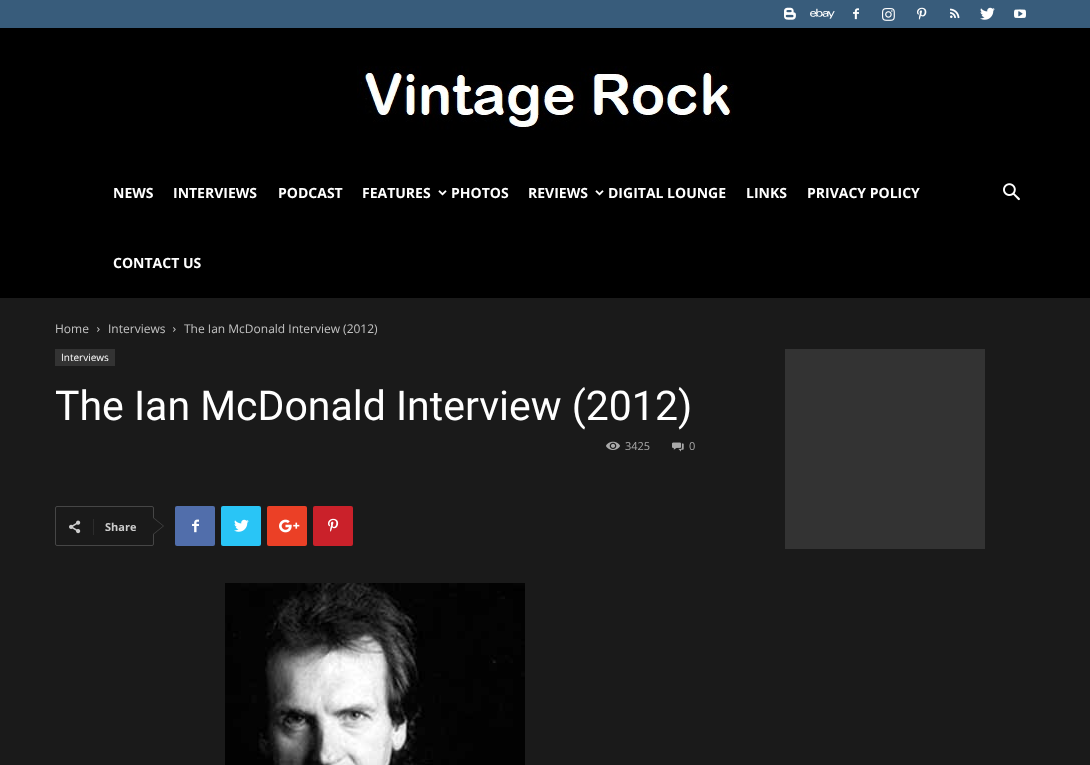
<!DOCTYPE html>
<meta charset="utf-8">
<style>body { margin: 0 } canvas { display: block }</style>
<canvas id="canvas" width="1090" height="765"></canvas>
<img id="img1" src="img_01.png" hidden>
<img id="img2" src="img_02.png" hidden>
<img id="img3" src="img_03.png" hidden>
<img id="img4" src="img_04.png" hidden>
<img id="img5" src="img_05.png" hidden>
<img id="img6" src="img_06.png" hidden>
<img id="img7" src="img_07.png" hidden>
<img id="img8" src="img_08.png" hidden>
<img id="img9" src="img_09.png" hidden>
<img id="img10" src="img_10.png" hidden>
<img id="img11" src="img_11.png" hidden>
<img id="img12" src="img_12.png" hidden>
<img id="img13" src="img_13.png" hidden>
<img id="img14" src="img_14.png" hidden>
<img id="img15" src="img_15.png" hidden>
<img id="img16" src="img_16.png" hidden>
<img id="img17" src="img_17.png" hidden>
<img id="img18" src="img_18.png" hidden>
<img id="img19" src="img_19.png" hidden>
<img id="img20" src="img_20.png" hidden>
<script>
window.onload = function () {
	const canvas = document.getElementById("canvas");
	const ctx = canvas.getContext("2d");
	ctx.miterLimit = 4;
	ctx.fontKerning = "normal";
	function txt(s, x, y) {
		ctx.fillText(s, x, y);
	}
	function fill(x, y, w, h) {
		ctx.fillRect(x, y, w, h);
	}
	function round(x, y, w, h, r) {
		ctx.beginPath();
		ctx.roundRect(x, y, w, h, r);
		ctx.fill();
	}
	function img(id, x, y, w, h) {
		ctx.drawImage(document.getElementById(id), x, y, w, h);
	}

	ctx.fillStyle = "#1A1A1A";
	fill(0, 0, 1090, 765);
	ctx.fillStyle = "#385C7B";
	fill(0, 0, 1090, 28);
	img("img1", 784, 7, 12, 13);
	img("img2", 810, 8, 25, 11);
	img("img3", 853, 8, 6, 12);
	img("img4", 882, 8, 13, 13);
	img("img5", 917, 7, 10, 13);
	img("img6", 950, 8, 10, 11);
	img("img7", 980, 7, 15, 13);
	img("img8", 1014, 9, 12, 9);
	ctx.fillStyle = "#000000";
	fill(0, 28, 1090, 270);
	img("img9", 357, 66, 377, 64);
	img("img10", 438, 190, 9, 6);
	img("img10", 595, 190, 9, 6);
	img("img11", 1003, 183, 17, 18);
	img("img12", 97, 327, 3, 5);
	img("img12", 173, 327, 3, 5);
	ctx.fillStyle = "#333333";
	fill(55, 349, 60, 17);
	img("img13", 606, 441, 14, 9);
	img("img14", 672, 442, 12, 10);
	ctx.beginPath();
	ctx.roundRect(55.5, 506.5, 98, 39, 1.5);
	ctx.strokeStyle = "#464646";
	ctx.stroke();
	ctx.fillStyle = "#434343";
	ctx.beginPath();
	ctx.moveTo(153, 535);
	ctx.lineTo(153, 517);
	ctx.lineTo(164, 526);
	ctx.closePath();
	ctx.fill();
	img("img15", 69, 520, 12, 14);
	ctx.fillStyle = "#2C2C2C";
	fill(93, 519, 1, 16);
	ctx.fillStyle = "#1A1A1A";
	ctx.beginPath();
	ctx.moveTo(153, 534);
	ctx.lineTo(153, 518);
	ctx.lineTo(163, 526);
	ctx.closePath();
	ctx.fill();
	ctx.fillStyle = "#516EAB";
	round(175, 506, 40, 40, 2);
	img("img16", 192, 519, 7, 14);
	ctx.fillStyle = "#29C5F6";
	round(221, 506, 40, 40, 2);
	img("img17", 234, 519, 15, 13);
	ctx.fillStyle = "#EB4026";
	round(267, 506, 40, 40, 2);
	img("img18", 279, 519, 21, 14);
	ctx.fillStyle = "#CA212A";
	round(313, 506, 40, 40, 2);
	img("img19", 328, 518, 11, 14);
	img("img20", 225, 583, 300, 182);
	ctx.fillStyle = "#333333";
	fill(785, 349, 200, 200);
	ctx.font = "bold 14px Open Sans";
	ctx.fillStyle = "#FFFFFF";
	txt("NEWS", 113, 198);
	txt("INTERVIEWS", 173, 198);
	txt("PODCAST", 278, 198);
	txt("FEATURES", 362, 198);
	txt("PHOTOS", 451, 198);
	txt("REVIEWS", 528, 198);
	txt("DIGITAL LOUNGE", 608, 198);
	txt("LINKS", 746, 198);
	txt("PRIVACY POLICY", 807, 198);
	txt("CONTACT US", 113, 268);
	ctx.font = "12px Open Sans";
	ctx.fillStyle = "#C3C3C3";
	txt("Home", 55, 333);
	txt("Interviews", 108, 333);
	txt("The Ian McDonald Interview (2012)", 184, 333);
	ctx.font = "10px Open Sans";
	ctx.fillStyle = "#FFFFFF";
	txt("Interviews", 61, 361);
	ctx.font = "41px Roboto";
	txt("The Ian McDonald Interview (2012)", 55, 420);
	ctx.font = "11px Open Sans";
	ctx.fillStyle = "#AAAAAA";
	txt("3425", 625, 450);
	txt("0", 689, 450);
	ctx.font = "bold 11px Open Sans";
	ctx.fillStyle = "#CCCCCC";
	txt("Share", 105, 531);
};
</script>
